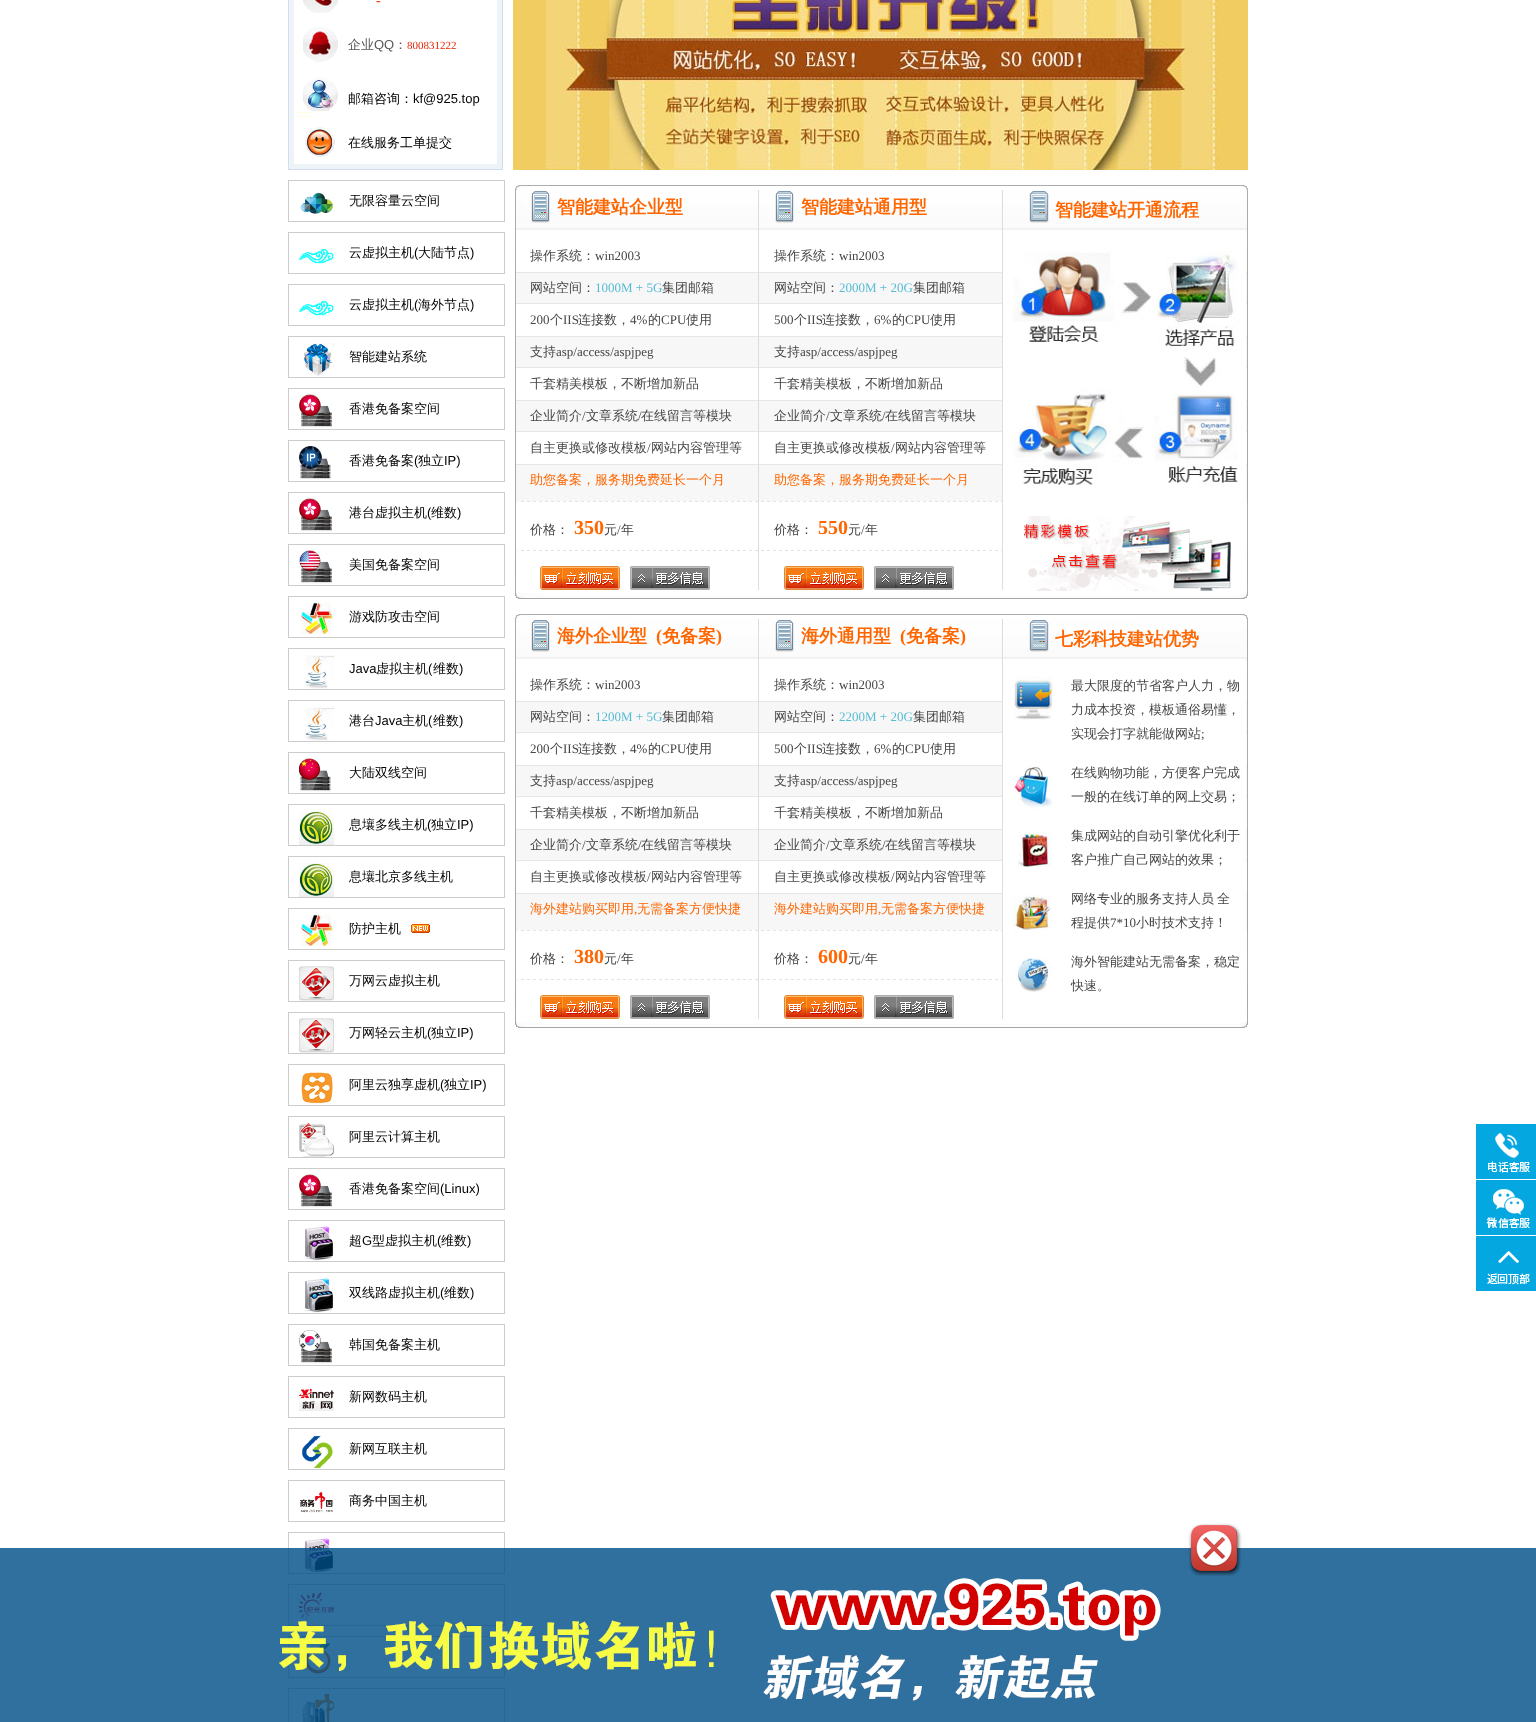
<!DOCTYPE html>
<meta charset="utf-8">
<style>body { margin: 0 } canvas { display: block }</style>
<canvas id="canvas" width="1536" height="1722"></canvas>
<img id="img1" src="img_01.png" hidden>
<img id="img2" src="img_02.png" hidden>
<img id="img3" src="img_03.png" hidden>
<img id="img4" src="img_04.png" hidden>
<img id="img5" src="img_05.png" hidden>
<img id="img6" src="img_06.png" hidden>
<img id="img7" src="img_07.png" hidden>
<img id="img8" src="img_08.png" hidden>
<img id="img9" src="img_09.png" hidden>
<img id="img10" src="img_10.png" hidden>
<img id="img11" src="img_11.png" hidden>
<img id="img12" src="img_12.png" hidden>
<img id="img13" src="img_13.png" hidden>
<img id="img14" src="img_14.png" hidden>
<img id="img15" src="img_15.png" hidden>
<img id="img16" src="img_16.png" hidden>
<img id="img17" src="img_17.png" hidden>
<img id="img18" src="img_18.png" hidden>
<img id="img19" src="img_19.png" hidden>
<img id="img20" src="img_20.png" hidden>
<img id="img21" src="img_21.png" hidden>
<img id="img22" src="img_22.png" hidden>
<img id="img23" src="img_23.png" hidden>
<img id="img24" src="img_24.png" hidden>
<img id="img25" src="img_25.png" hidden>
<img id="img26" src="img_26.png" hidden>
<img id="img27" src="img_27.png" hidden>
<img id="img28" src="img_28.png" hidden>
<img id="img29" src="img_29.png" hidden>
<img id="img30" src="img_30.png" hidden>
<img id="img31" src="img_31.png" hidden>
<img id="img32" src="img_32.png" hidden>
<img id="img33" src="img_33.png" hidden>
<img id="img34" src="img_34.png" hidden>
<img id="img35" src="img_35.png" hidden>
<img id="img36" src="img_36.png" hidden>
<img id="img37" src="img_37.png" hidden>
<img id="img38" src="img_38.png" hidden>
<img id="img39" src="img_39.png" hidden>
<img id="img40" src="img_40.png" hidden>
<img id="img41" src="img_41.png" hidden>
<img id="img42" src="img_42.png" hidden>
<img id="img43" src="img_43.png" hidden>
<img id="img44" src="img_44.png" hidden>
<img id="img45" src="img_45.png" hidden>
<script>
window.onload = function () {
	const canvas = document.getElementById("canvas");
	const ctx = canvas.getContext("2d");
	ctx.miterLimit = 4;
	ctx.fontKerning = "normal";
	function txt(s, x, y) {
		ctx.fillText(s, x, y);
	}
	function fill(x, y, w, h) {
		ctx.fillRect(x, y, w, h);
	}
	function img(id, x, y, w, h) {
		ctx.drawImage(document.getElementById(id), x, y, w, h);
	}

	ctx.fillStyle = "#FFFFFF";
	fill(0, 0, 1536, 1722);
	img("img1", 288, 0, 215, 170);
	img("img2", 303, 0, 35, 13);
	img("img3", 303, 27, 35, 35);
	img("img4", 303, 77, 35, 34);
	img("img5", 305, 127, 30, 30);
	img("img6", 513, 0, 735, 170);
	ctx.strokeStyle = "#CCCCCC";
	ctx.strokeRect(288.5, 180.5, 216, 41);
	img("img7", 300, 192, 34, 22);
	ctx.strokeRect(288.5, 232.5, 216, 41);
	img("img8", 299, 249, 35, 15);
	ctx.strokeRect(288.5, 284.5, 216, 41);
	img("img8", 299, 301, 35, 15);
	ctx.strokeRect(288.5, 336.5, 216, 41);
	img("img9", 304, 342, 30, 34);
	ctx.strokeRect(288.5, 388.5, 216, 41);
	img("img10", 299, 394, 33, 34);
	ctx.strokeRect(288.5, 440.5, 216, 41);
	img("img11", 299, 446, 32, 34);
	ctx.strokeRect(288.5, 492.5, 216, 41);
	img("img10", 299, 498, 33, 34);
	ctx.strokeRect(288.5, 544.5, 216, 41);
	img("img12", 299, 550, 33, 34);
	ctx.strokeRect(288.5, 596.5, 216, 41);
	img("img13", 300, 602, 33, 32);
	ctx.strokeRect(288.5, 648.5, 216, 41);
	img("img14", 304, 655, 30, 34);
	ctx.strokeRect(288.5, 700.5, 216, 41);
	img("img14", 304, 707, 30, 34);
	ctx.strokeRect(288.5, 752.5, 216, 41);
	img("img15", 299, 758, 32, 34);
	ctx.strokeRect(288.5, 804.5, 216, 41);
	img("img16", 299, 811, 35, 34);
	ctx.strokeRect(288.5, 856.5, 216, 41);
	img("img16", 299, 863, 35, 34);
	ctx.strokeRect(288.5, 908.5, 216, 41);
	img("img13", 300, 914, 33, 32);
	img("img17", 411, 924, 19, 9);
	ctx.strokeRect(288.5, 960.5, 216, 41);
	img("img18", 299, 966, 35, 35);
	ctx.strokeRect(288.5, 1012.5, 216, 41);
	img("img18", 299, 1018, 35, 35);
	ctx.strokeRect(288.5, 1064.5, 216, 41);
	img("img19", 301, 1072, 32, 32);
	ctx.strokeRect(288.5, 1116.5, 216, 41);
	img("img20", 299, 1123, 35, 34);
	ctx.strokeRect(288.5, 1168.5, 216, 41);
	img("img10", 299, 1174, 33, 34);
	ctx.strokeRect(288.5, 1220.5, 216, 41);
	img("img21", 304, 1226, 30, 35);
	ctx.strokeRect(288.5, 1272.5, 216, 41);
	img("img22", 304, 1278, 30, 35);
	ctx.strokeRect(288.5, 1324.5, 216, 41);
	img("img23", 299, 1330, 33, 34);
	ctx.strokeRect(288.5, 1376.5, 216, 41);
	img("img24", 299, 1388, 35, 23);
	ctx.strokeRect(288.5, 1428.5, 216, 41);
	img("img25", 302, 1435, 31, 34);
	ctx.strokeRect(288.5, 1480.5, 216, 41);
	img("img26", 300, 1492, 33, 21);
	ctx.strokeRect(288.5, 1532.5, 216, 41);
	img("img21", 304, 1538, 30, 35);
	ctx.strokeRect(288.5, 1584.5, 216, 41);
	img("img27", 299, 1592, 35, 29);
	ctx.strokeRect(288.5, 1636.5, 216, 41);
	img("img28", 306, 1643, 25, 31);
	ctx.strokeRect(288.5, 1688.5, 216, 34);
	img("img29", 302, 1694, 32, 28);
	img("img30", 515, 185, 733, 414);
	ctx.fillStyle = "#DDDDDD";
	fill(758, 190, 1, 400);
	img("img31", 531, 191, 19, 32);
	img("img32", 540, 566, 80, 24);
	img("img33", 630, 566, 80, 24);
	fill(1002, 190, 1, 400);
	img("img31", 775, 191, 19, 32);
	img("img32", 784, 566, 80, 24);
	img("img33", 874, 566, 80, 24);
	img("img34", 1029, 191, 20, 32);
	ctx.fillStyle = "#FFFFFF";
	fill(1003, 272, 243, 322);
	img("img35", 1013, 250, 225, 235);
	img("img36", 1023, 516, 208, 75);
	img("img30", 515, 614, 733, 414);
	ctx.fillStyle = "#DDDDDD";
	fill(758, 619, 1, 400);
	img("img31", 531, 620, 19, 32);
	img("img32", 540, 995, 80, 24);
	img("img33", 630, 995, 80, 24);
	fill(1002, 619, 1, 400);
	img("img31", 775, 620, 19, 32);
	img("img32", 784, 995, 80, 24);
	img("img33", 874, 995, 80, 24);
	img("img34", 1029, 620, 20, 32);
	ctx.fillStyle = "#FFFFFF";
	fill(1003, 701, 243, 32);
	img("img37", 1013, 677, 40, 43);
	fill(1003, 765, 243, 32);
	img("img38", 1013, 766, 39, 43);
	fill(1003, 829, 243, 32);
	img("img39", 1018, 832, 34, 35);
	fill(1003, 893, 243, 38);
	img("img40", 1013, 895, 39, 35);
	fill(1003, 979, 241, 1);
	img("img41", 1014, 958, 38, 34);
	ctx.fillStyle = "#05A7E1";
	fill(1476, 1124, 60, 55);
	img("img42", 1488, 1133, 42, 40);
	fill(1476, 1180, 60, 55);
	img("img43", 1486, 1189, 44, 39);
	fill(1476, 1236, 60, 55);
	img("img44", 1487, 1251, 43, 34);
	img("img45", 0, 1523, 1536, 199);
	ctx.font = "14px Liberation Serif";
	ctx.fillStyle = "#E52500";
	txt("-", 376, 5);
	ctx.font = "500 13px WenQuanYi Zen Hei";
	ctx.fillStyle = "#555555";
	txt("企业", 348, 49);
	ctx.font = "13px Liberation Sans";
	txt("QQ", 374, 49);
	ctx.font = "500 13px WenQuanYi Zen Hei";
	txt("：", 394, 49);
	ctx.font = "11px Liberation Serif";
	ctx.fillStyle = "#E52500";
	txt("800831222", 407, 49);
	ctx.font = "500 13px WenQuanYi Zen Hei";
	ctx.fillStyle = "#000000";
	txt("邮箱咨询：", 348, 103);
	ctx.font = "13px Liberation Sans";
	txt("kf@925.top", 413, 103);
	ctx.font = "500 13px WenQuanYi Zen Hei";
	txt("在线服务工单提交", 348, 147);
	txt("无限容量云空间", 349, 205);
	txt("云虚拟主机", 349, 257);
	ctx.font = "13px Liberation Sans";
	txt("(", 414, 257);
	ctx.font = "500 13px WenQuanYi Zen Hei";
	txt("大陆节点", 418, 257);
	ctx.font = "13px Liberation Sans";
	txt(")", 470, 257);
	ctx.font = "500 13px WenQuanYi Zen Hei";
	txt("云虚拟主机", 349, 309);
	ctx.font = "13px Liberation Sans";
	txt("(", 414, 309);
	ctx.font = "500 13px WenQuanYi Zen Hei";
	txt("海外节点", 418, 309);
	ctx.font = "13px Liberation Sans";
	txt(")", 470, 309);
	ctx.font = "500 13px WenQuanYi Zen Hei";
	txt("智能建站系统", 349, 361);
	txt("香港免备案空间", 349, 413);
	txt("香港免备案", 349, 465);
	ctx.font = "13px Liberation Sans";
	txt("(", 414, 465);
	ctx.font = "500 13px WenQuanYi Zen Hei";
	txt("独立", 418, 465);
	ctx.font = "13px Liberation Sans";
	txt("IP)", 444, 465);
	ctx.font = "500 13px WenQuanYi Zen Hei";
	txt("港台虚拟主机", 349, 517);
	ctx.font = "13px Liberation Sans";
	txt("(", 427, 517);
	ctx.font = "500 13px WenQuanYi Zen Hei";
	txt("维数", 431, 517);
	ctx.font = "13px Liberation Sans";
	txt(")", 457, 517);
	ctx.font = "500 13px WenQuanYi Zen Hei";
	txt("美国免备案空间", 349, 569);
	txt("游戏防攻击空间", 349, 621);
	ctx.font = "13px Liberation Sans";
	txt("Java", 349, 673);
	ctx.font = "500 13px WenQuanYi Zen Hei";
	txt("虚拟主机", 376, 673);
	ctx.font = "13px Liberation Sans";
	txt("(", 428, 673);
	ctx.font = "500 13px WenQuanYi Zen Hei";
	txt("维数", 433, 673);
	ctx.font = "13px Liberation Sans";
	txt(")", 459, 673);
	ctx.font = "500 13px WenQuanYi Zen Hei";
	txt("港台", 349, 725);
	ctx.font = "13px Liberation Sans";
	txt("Java", 375, 725);
	ctx.font = "500 13px WenQuanYi Zen Hei";
	txt("主机", 402, 725);
	ctx.font = "13px Liberation Sans";
	txt("(", 428, 725);
	ctx.font = "500 13px WenQuanYi Zen Hei";
	txt("维数", 433, 725);
	ctx.font = "13px Liberation Sans";
	txt(")", 459, 725);
	ctx.font = "500 13px WenQuanYi Zen Hei";
	txt("大陆双线空间", 349, 777);
	txt("息壤多线主机", 349, 829);
	ctx.font = "13px Liberation Sans";
	txt("(", 427, 829);
	ctx.font = "500 13px WenQuanYi Zen Hei";
	txt("独立", 431, 829);
	ctx.font = "13px Liberation Sans";
	txt("IP)", 457, 829);
	ctx.font = "500 13px WenQuanYi Zen Hei";
	txt("息壤北京多线主机", 349, 881);
	txt("防护主机", 349, 933);
	txt("万网云虚拟主机", 349, 985);
	txt("万网轻云主机", 349, 1037);
	ctx.font = "13px Liberation Sans";
	txt("(", 427, 1037);
	ctx.font = "500 13px WenQuanYi Zen Hei";
	txt("独立", 431, 1037);
	ctx.font = "13px Liberation Sans";
	txt("IP)", 457, 1037);
	ctx.font = "500 13px WenQuanYi Zen Hei";
	txt("阿里云独享虚机", 349, 1089);
	ctx.font = "13px Liberation Sans";
	txt("(", 440, 1089);
	ctx.font = "500 13px WenQuanYi Zen Hei";
	txt("独立", 444, 1089);
	ctx.font = "13px Liberation Sans";
	txt("IP)", 470, 1089);
	ctx.font = "500 13px WenQuanYi Zen Hei";
	txt("阿里云计算主机", 349, 1141);
	txt("香港免备案空间", 349, 1193);
	ctx.font = "13px Liberation Sans";
	txt("(Linux)", 440, 1193);
	ctx.font = "500 13px WenQuanYi Zen Hei";
	txt("超", 349, 1245);
	ctx.font = "13px Liberation Sans";
	txt("G", 362, 1245);
	ctx.font = "500 13px WenQuanYi Zen Hei";
	txt("型虚拟主机", 372, 1245);
	ctx.font = "13px Liberation Sans";
	txt("(", 437, 1245);
	ctx.font = "500 13px WenQuanYi Zen Hei";
	txt("维数", 441, 1245);
	ctx.font = "13px Liberation Sans";
	txt(")", 467, 1245);
	ctx.font = "500 13px WenQuanYi Zen Hei";
	txt("双线路虚拟主机", 349, 1297);
	ctx.font = "13px Liberation Sans";
	txt("(", 440, 1297);
	ctx.font = "500 13px WenQuanYi Zen Hei";
	txt("维数", 444, 1297);
	ctx.font = "13px Liberation Sans";
	txt(")", 470, 1297);
	ctx.font = "500 13px WenQuanYi Zen Hei";
	txt("韩国免备案主机", 349, 1349);
	txt("新网数码主机", 349, 1401);
	txt("新网互联主机", 349, 1453);
	txt("商务中国主机", 349, 1505);
	ctx.font = "bold 18px WenQuanYi Zen Hei";
	ctx.fillStyle = "#FF6600";
	txt("智能建站企业型", 557, 213);
	ctx.font = "500 13px WenQuanYi Zen Hei";
	ctx.fillStyle = "#464646";
	txt("操作系统：", 530, 260);
	ctx.font = "13px Liberation Serif";
	txt("win2003", 595, 260);
	ctx.font = "500 13px WenQuanYi Zen Hei";
	txt("网站空间：", 530, 292);
	ctx.font = "13px Liberation Serif";
	ctx.fillStyle = "#57BBD4";
	txt("1000M + 5G", 595, 292);
	ctx.font = "500 13px WenQuanYi Zen Hei";
	ctx.fillStyle = "#464646";
	txt("集团邮箱", 662, 292);
	ctx.font = "13px Liberation Serif";
	txt("200", 530, 324);
	ctx.font = "500 13px WenQuanYi Zen Hei";
	txt("个", 550, 324);
	ctx.font = "13px Liberation Serif";
	txt("IIS", 563, 324);
	ctx.font = "500 13px WenQuanYi Zen Hei";
	txt("连接数，", 578, 324);
	ctx.font = "13px Liberation Serif";
	txt("4%", 630, 324);
	ctx.font = "500 13px WenQuanYi Zen Hei";
	txt("的", 648, 324);
	ctx.font = "13px Liberation Serif";
	txt("CPU", 661, 324);
	ctx.font = "500 13px WenQuanYi Zen Hei";
	txt("使用", 686, 324);
	txt("支持", 530, 356);
	ctx.font = "13px Liberation Serif";
	txt("asp/access/aspjpeg", 556, 356);
	ctx.font = "500 13px WenQuanYi Zen Hei";
	txt("千套精美模板，不断增加新品", 530, 388);
	txt("企业简介", 530, 420);
	ctx.font = "13px Liberation Serif";
	txt("/", 582, 420);
	ctx.font = "500 13px WenQuanYi Zen Hei";
	txt("文章系统", 586, 420);
	ctx.font = "13px Liberation Serif";
	txt("/", 638, 420);
	ctx.font = "500 13px WenQuanYi Zen Hei";
	txt("在线留言等模块", 641, 420);
	txt("自主更换或修改模板 网站内容管理等", 530, 452);
	ctx.font = "13px Liberation Serif";
	txt("/", 647, 452);
	ctx.font = "500 13px WenQuanYi Zen Hei";
	ctx.fillStyle = "#FF6600";
	txt("助您备案，服务期免费延长一个月", 530, 484);
	ctx.fillStyle = "#464646";
	txt("价格：", 530, 534);
	ctx.font = "bold 20px Liberation Serif";
	ctx.fillStyle = "#FF6600";
	txt("350", 574, 534);
	ctx.font = "500 13px WenQuanYi Zen Hei";
	ctx.fillStyle = "#464646";
	txt("元", 604, 534);
	ctx.font = "13px Liberation Serif";
	txt("/", 617, 534);
	ctx.font = "500 13px WenQuanYi Zen Hei";
	txt("年", 621, 534);
	ctx.font = "bold 18px WenQuanYi Zen Hei";
	ctx.fillStyle = "#FF6600";
	txt("智能建站通用型", 801, 213);
	ctx.font = "500 13px WenQuanYi Zen Hei";
	ctx.fillStyle = "#464646";
	txt("操作系统：", 774, 260);
	ctx.font = "13px Liberation Serif";
	txt("win2003", 839, 260);
	ctx.font = "500 13px WenQuanYi Zen Hei";
	txt("网站空间：", 774, 292);
	ctx.font = "13px Liberation Serif";
	ctx.fillStyle = "#57BBD4";
	txt("2000M + 20G", 839, 292);
	ctx.font = "500 13px WenQuanYi Zen Hei";
	ctx.fillStyle = "#464646";
	txt("集团邮箱", 913, 292);
	ctx.font = "13px Liberation Serif";
	txt("500", 774, 324);
	ctx.font = "500 13px WenQuanYi Zen Hei";
	txt("个", 794, 324);
	ctx.font = "13px Liberation Serif";
	txt("IIS", 807, 324);
	ctx.font = "500 13px WenQuanYi Zen Hei";
	txt("连接数，", 822, 324);
	ctx.font = "13px Liberation Serif";
	txt("6%", 874, 324);
	ctx.font = "500 13px WenQuanYi Zen Hei";
	txt("的", 892, 324);
	ctx.font = "13px Liberation Serif";
	txt("CPU", 905, 324);
	ctx.font = "500 13px WenQuanYi Zen Hei";
	txt("使用", 930, 324);
	txt("支持", 774, 356);
	ctx.font = "13px Liberation Serif";
	txt("asp/access/aspjpeg", 800, 356);
	ctx.font = "500 13px WenQuanYi Zen Hei";
	txt("千套精美模板，不断增加新品", 774, 388);
	txt("企业简介", 774, 420);
	ctx.font = "13px Liberation Serif";
	txt("/", 826, 420);
	ctx.font = "500 13px WenQuanYi Zen Hei";
	txt("文章系统", 830, 420);
	ctx.font = "13px Liberation Serif";
	txt("/", 882, 420);
	ctx.font = "500 13px WenQuanYi Zen Hei";
	txt("在线留言等模块", 885, 420);
	txt("自主更换或修改模板 网站内容管理等", 774, 452);
	ctx.font = "13px Liberation Serif";
	txt("/", 891, 452);
	ctx.font = "500 13px WenQuanYi Zen Hei";
	ctx.fillStyle = "#FF6600";
	txt("助您备案，服务期免费延长一个月", 774, 484);
	ctx.fillStyle = "#464646";
	txt("价格：", 774, 534);
	ctx.font = "bold 20px Liberation Serif";
	ctx.fillStyle = "#FF6600";
	txt("550", 818, 534);
	ctx.font = "500 13px WenQuanYi Zen Hei";
	ctx.fillStyle = "#464646";
	txt("元", 848, 534);
	ctx.font = "13px Liberation Serif";
	txt("/", 861, 534);
	ctx.font = "500 13px WenQuanYi Zen Hei";
	txt("年", 865, 534);
	ctx.font = "bold 18px WenQuanYi Zen Hei";
	ctx.fillStyle = "#FF6600";
	txt("智能建站开通流程", 1055, 216);
	txt("海外企业型", 557, 642);
	ctx.font = "bold 18px Liberation Serif";
	txt("(", 656, 642);
	ctx.font = "bold 18px WenQuanYi Zen Hei";
	txt("免备案", 662, 642);
	ctx.font = "bold 18px Liberation Serif";
	txt(")", 716, 642);
	ctx.font = "500 13px WenQuanYi Zen Hei";
	ctx.fillStyle = "#464646";
	txt("操作系统：", 530, 689);
	ctx.font = "13px Liberation Serif";
	txt("win2003", 595, 689);
	ctx.font = "500 13px WenQuanYi Zen Hei";
	txt("网站空间：", 530, 721);
	ctx.font = "13px Liberation Serif";
	ctx.fillStyle = "#57BBD4";
	txt("1200M + 5G", 595, 721);
	ctx.font = "500 13px WenQuanYi Zen Hei";
	ctx.fillStyle = "#464646";
	txt("集团邮箱", 662, 721);
	ctx.font = "13px Liberation Serif";
	txt("200", 530, 753);
	ctx.font = "500 13px WenQuanYi Zen Hei";
	txt("个", 550, 753);
	ctx.font = "13px Liberation Serif";
	txt("IIS", 563, 753);
	ctx.font = "500 13px WenQuanYi Zen Hei";
	txt("连接数，", 578, 753);
	ctx.font = "13px Liberation Serif";
	txt("4%", 630, 753);
	ctx.font = "500 13px WenQuanYi Zen Hei";
	txt("的", 648, 753);
	ctx.font = "13px Liberation Serif";
	txt("CPU", 661, 753);
	ctx.font = "500 13px WenQuanYi Zen Hei";
	txt("使用", 686, 753);
	txt("支持", 530, 785);
	ctx.font = "13px Liberation Serif";
	txt("asp/access/aspjpeg", 556, 785);
	ctx.font = "500 13px WenQuanYi Zen Hei";
	txt("千套精美模板，不断增加新品", 530, 817);
	txt("企业简介", 530, 849);
	ctx.font = "13px Liberation Serif";
	txt("/", 582, 849);
	ctx.font = "500 13px WenQuanYi Zen Hei";
	txt("文章系统", 586, 849);
	ctx.font = "13px Liberation Serif";
	txt("/", 638, 849);
	ctx.font = "500 13px WenQuanYi Zen Hei";
	txt("在线留言等模块", 641, 849);
	txt("自主更换或修改模板 网站内容管理等", 530, 881);
	ctx.font = "13px Liberation Serif";
	txt("/", 647, 881);
	ctx.font = "500 13px WenQuanYi Zen Hei";
	ctx.fillStyle = "#FF6600";
	txt("海外建站购买即用", 530, 913);
	ctx.font = "13px Liberation Serif";
	txt(",", 634, 913);
	ctx.font = "500 13px WenQuanYi Zen Hei";
	txt("无需备案方便快捷", 637, 913);
	ctx.fillStyle = "#464646";
	txt("价格：", 530, 963);
	ctx.font = "bold 20px Liberation Serif";
	ctx.fillStyle = "#FF6600";
	txt("380", 574, 963);
	ctx.font = "500 13px WenQuanYi Zen Hei";
	ctx.fillStyle = "#464646";
	txt("元", 604, 963);
	ctx.font = "13px Liberation Serif";
	txt("/", 617, 963);
	ctx.font = "500 13px WenQuanYi Zen Hei";
	txt("年", 621, 963);
	ctx.font = "bold 18px WenQuanYi Zen Hei";
	ctx.fillStyle = "#FF6600";
	txt("海外通用型", 801, 642);
	ctx.font = "bold 18px Liberation Serif";
	txt("(", 900, 642);
	ctx.font = "bold 18px WenQuanYi Zen Hei";
	txt("免备案", 906, 642);
	ctx.font = "bold 18px Liberation Serif";
	txt(")", 960, 642);
	ctx.font = "500 13px WenQuanYi Zen Hei";
	ctx.fillStyle = "#464646";
	txt("操作系统：", 774, 689);
	ctx.font = "13px Liberation Serif";
	txt("win2003", 839, 689);
	ctx.font = "500 13px WenQuanYi Zen Hei";
	txt("网站空间：", 774, 721);
	ctx.font = "13px Liberation Serif";
	ctx.fillStyle = "#57BBD4";
	txt("2200M + 20G", 839, 721);
	ctx.font = "500 13px WenQuanYi Zen Hei";
	ctx.fillStyle = "#464646";
	txt("集团邮箱", 913, 721);
	ctx.font = "13px Liberation Serif";
	txt("500", 774, 753);
	ctx.font = "500 13px WenQuanYi Zen Hei";
	txt("个", 794, 753);
	ctx.font = "13px Liberation Serif";
	txt("IIS", 807, 753);
	ctx.font = "500 13px WenQuanYi Zen Hei";
	txt("连接数，", 822, 753);
	ctx.font = "13px Liberation Serif";
	txt("6%", 874, 753);
	ctx.font = "500 13px WenQuanYi Zen Hei";
	txt("的", 892, 753);
	ctx.font = "13px Liberation Serif";
	txt("CPU", 905, 753);
	ctx.font = "500 13px WenQuanYi Zen Hei";
	txt("使用", 930, 753);
	txt("支持", 774, 785);
	ctx.font = "13px Liberation Serif";
	txt("asp/access/aspjpeg", 800, 785);
	ctx.font = "500 13px WenQuanYi Zen Hei";
	txt("千套精美模板，不断增加新品", 774, 817);
	txt("企业简介", 774, 849);
	ctx.font = "13px Liberation Serif";
	txt("/", 826, 849);
	ctx.font = "500 13px WenQuanYi Zen Hei";
	txt("文章系统", 830, 849);
	ctx.font = "13px Liberation Serif";
	txt("/", 882, 849);
	ctx.font = "500 13px WenQuanYi Zen Hei";
	txt("在线留言等模块", 885, 849);
	txt("自主更换或修改模板 网站内容管理等", 774, 881);
	ctx.font = "13px Liberation Serif";
	txt("/", 891, 881);
	ctx.font = "500 13px WenQuanYi Zen Hei";
	ctx.fillStyle = "#FF6600";
	txt("海外建站购买即用", 774, 913);
	ctx.font = "13px Liberation Serif";
	txt(",", 878, 913);
	ctx.font = "500 13px WenQuanYi Zen Hei";
	txt("无需备案方便快捷", 881, 913);
	ctx.fillStyle = "#464646";
	txt("价格：", 774, 963);
	ctx.font = "bold 20px Liberation Serif";
	ctx.fillStyle = "#FF6600";
	txt("600", 818, 963);
	ctx.font = "500 13px WenQuanYi Zen Hei";
	ctx.fillStyle = "#464646";
	txt("元", 848, 963);
	ctx.font = "13px Liberation Serif";
	txt("/", 861, 963);
	ctx.font = "500 13px WenQuanYi Zen Hei";
	txt("年", 865, 963);
	ctx.font = "bold 18px WenQuanYi Zen Hei";
	ctx.fillStyle = "#FF6600";
	txt("七彩科技建站优势", 1055, 645);
	ctx.font = "500 13px WenQuanYi Zen Hei";
	ctx.fillStyle = "#464646";
	txt("最大限度的节省客户人力，物", 1071, 690);
	txt("力成本投资，模板通俗易懂，", 1071, 714);
	txt("实现会打字就能做网站", 1071, 738);
	ctx.font = "13px Liberation Serif";
	txt(";", 1201, 738);
	ctx.font = "500 13px WenQuanYi Zen Hei";
	txt("在线购物功能，方便客户完成", 1071, 777);
	txt("一般的在线订单的网上交易；", 1071, 801);
	txt("集成网站的自动引擎优化利于", 1071, 840);
	txt("客户推广自己网站的效果；", 1071, 864);
	ctx.wordSpacing = "-1px";
	txt("网络专业的服务支持人员 全", 1071, 903);
	ctx.wordSpacing = "0px";
	txt("程提供", 1071, 927);
	ctx.font = "13px Liberation Serif";
	txt("7*10", 1110, 927);
	ctx.font = "500 13px WenQuanYi Zen Hei";
	txt("小时技术支持！", 1136, 927);
	txt("海外智能建站无需备案，稳定", 1071, 966);
	txt("快速。", 1071, 990);
};
</script>
